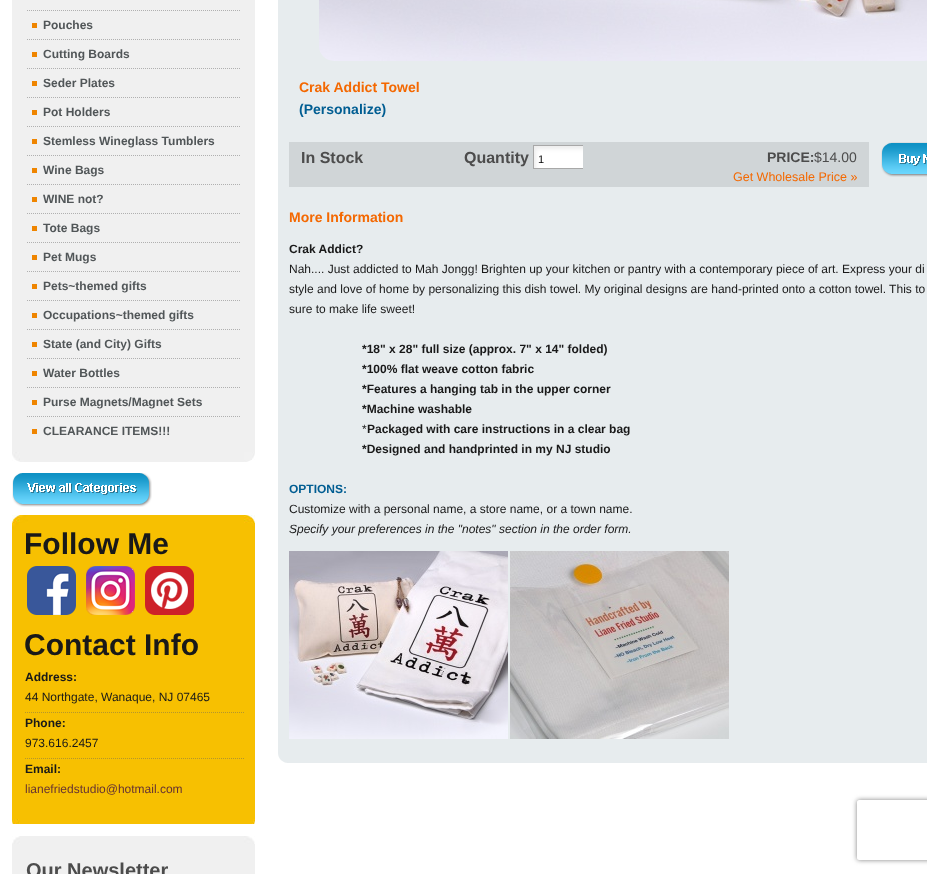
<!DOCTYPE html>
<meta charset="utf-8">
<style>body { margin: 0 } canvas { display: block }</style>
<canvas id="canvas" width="927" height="874"></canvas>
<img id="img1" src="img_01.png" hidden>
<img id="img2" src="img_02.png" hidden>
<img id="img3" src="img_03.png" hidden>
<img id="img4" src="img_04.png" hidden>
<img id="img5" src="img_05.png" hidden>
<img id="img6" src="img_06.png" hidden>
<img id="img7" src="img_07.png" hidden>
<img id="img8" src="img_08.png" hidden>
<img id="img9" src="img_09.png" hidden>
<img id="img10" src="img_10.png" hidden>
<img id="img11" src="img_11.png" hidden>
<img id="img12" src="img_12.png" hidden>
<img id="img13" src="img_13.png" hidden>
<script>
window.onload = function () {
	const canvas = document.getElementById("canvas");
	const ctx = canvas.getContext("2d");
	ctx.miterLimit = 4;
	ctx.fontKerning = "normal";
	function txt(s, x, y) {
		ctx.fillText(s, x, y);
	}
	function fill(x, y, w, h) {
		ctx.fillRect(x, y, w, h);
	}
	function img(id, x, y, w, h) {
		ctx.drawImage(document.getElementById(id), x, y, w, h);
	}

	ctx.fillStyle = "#FFFFFF";
	fill(0, 0, 927, 874);
	ctx.fillStyle = "#F0F0F0";
	fill(12, 0, 243, 452);
	ctx.beginPath();
	ctx.moveTo(27, 10.5);
	ctx.lineTo(240, 10.5);
	ctx.strokeStyle = "#B0B0B0";
	ctx.setLineDash([1, 1]);
	ctx.stroke();
	ctx.beginPath();
	ctx.moveTo(27, 39.5);
	ctx.lineTo(240, 39.5);
	ctx.stroke();
	ctx.fillStyle = "#EF8500";
	fill(32, 23, 5, 5);
	ctx.beginPath();
	ctx.moveTo(27, 68.5);
	ctx.lineTo(240, 68.5);
	ctx.stroke();
	fill(32, 52, 5, 5);
	ctx.beginPath();
	ctx.moveTo(27, 97.5);
	ctx.lineTo(240, 97.5);
	ctx.stroke();
	fill(32, 81, 5, 5);
	ctx.beginPath();
	ctx.moveTo(27, 126.5);
	ctx.lineTo(240, 126.5);
	ctx.stroke();
	fill(32, 110, 5, 5);
	ctx.beginPath();
	ctx.moveTo(27, 155.5);
	ctx.lineTo(240, 155.5);
	ctx.stroke();
	fill(32, 139, 5, 5);
	ctx.beginPath();
	ctx.moveTo(27, 184.5);
	ctx.lineTo(240, 184.5);
	ctx.stroke();
	fill(32, 168, 5, 5);
	ctx.beginPath();
	ctx.moveTo(27, 213.5);
	ctx.lineTo(240, 213.5);
	ctx.stroke();
	fill(32, 197, 5, 5);
	ctx.beginPath();
	ctx.moveTo(27, 242.5);
	ctx.lineTo(240, 242.5);
	ctx.stroke();
	fill(32, 226, 5, 5);
	ctx.beginPath();
	ctx.moveTo(27, 271.5);
	ctx.lineTo(240, 271.5);
	ctx.stroke();
	fill(32, 255, 5, 5);
	ctx.beginPath();
	ctx.moveTo(27, 300.5);
	ctx.lineTo(240, 300.5);
	ctx.stroke();
	fill(32, 284, 5, 5);
	ctx.beginPath();
	ctx.moveTo(27, 329.5);
	ctx.lineTo(240, 329.5);
	ctx.stroke();
	fill(32, 313, 5, 5);
	ctx.beginPath();
	ctx.moveTo(27, 358.5);
	ctx.lineTo(240, 358.5);
	ctx.stroke();
	fill(32, 342, 5, 5);
	ctx.beginPath();
	ctx.moveTo(27, 387.5);
	ctx.lineTo(240, 387.5);
	ctx.stroke();
	fill(32, 371, 5, 5);
	ctx.beginPath();
	ctx.moveTo(27, 416.5);
	ctx.lineTo(240, 416.5);
	ctx.stroke();
	fill(32, 400, 5, 5);
	fill(32, 429, 5, 5);
	img("img1", 12, 452, 243, 10);
	img("img2", 12, 473, 140, 34);
	img("img3", 12, 515, 243, 309);
	img("img4", 27, 566, 49, 49);
	img("img5", 86, 566, 49, 49);
	img("img6", 145, 566, 49, 49);
	ctx.beginPath();
	ctx.moveTo(25, 712.5);
	ctx.lineTo(245, 712.5);
	ctx.strokeStyle = "#B4962C";
	ctx.stroke();
	ctx.beginPath();
	ctx.moveTo(25, 758.5);
	ctx.lineTo(245, 758.5);
	ctx.stroke();
	img("img7", 12, 836, 243, 11);
	ctx.fillStyle = "#F0F0F0";
	fill(12, 847, 243, 27);
	ctx.fillStyle = "#E7ECEE";
	fill(278, 0, 649, 753);
	img("img8", 319, 0, 608, 61);
	ctx.fillStyle = "#D0D5D7";
	fill(289, 142, 580, 45);
	img("img9", 533, 145, 50, 24);
	img("img10", 881, 142, 46, 35);
	img("img11", 289, 551, 219, 188);
	img("img12", 510, 551, 219, 188);
	img("img13", 278, 753, 649, 10);
	ctx.save();
	ctx.beginPath();
	ctx.moveTo(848, 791);
	ctx.lineTo(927, 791);
	ctx.lineTo(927, 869);
	ctx.lineTo(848, 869);
	ctx.closePath();
	ctx.moveTo(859, 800);
	ctx.lineTo(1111, 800);
	ctx.bezierCurveTo(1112, 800, 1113, 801, 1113, 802);
	ctx.lineTo(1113, 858);
	ctx.bezierCurveTo(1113, 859, 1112, 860, 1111, 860);
	ctx.lineTo(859, 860);
	ctx.bezierCurveTo(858, 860, 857, 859, 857, 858);
	ctx.lineTo(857, 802);
	ctx.bezierCurveTo(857, 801, 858, 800, 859, 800);
	ctx.closePath();
	ctx.clip("evenodd");
	ctx.fillStyle = "#808080";
	ctx.filter = "blur(2.5px)";
	ctx.beginPath();
	ctx.roundRect(857, 800, 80, 60, 2);
	ctx.fill();
	ctx.filter = "none";
	ctx.restore();
	ctx.font = "bold 12px Liberation Sans";
	ctx.fillStyle = "#515658";
	txt("Pouches", 43, 29);
	txt("Cutting Boards", 43, 58);
	txt("Seder Plates", 43, 87);
	txt("Pot Holders", 43, 116);
	txt("Stemless Wineglass Tumblers", 43, 145);
	txt("Wine Bags", 43, 174);
	txt("WINE not?", 43, 203);
	txt("Tote Bags", 43, 232);
	txt("Pet Mugs", 43, 261);
	txt("Pets~themed gifts", 43, 290);
	txt("Occupations~themed gifts", 43, 319);
	txt("State (and City) Gifts", 43, 348);
	txt("Water Bottles", 43, 377);
	txt("Purse Magnets/Magnet Sets", 43, 406);
	txt("CLEARANCE ITEMS!!!", 43, 435);
	ctx.font = "bold 30px Liberation Sans";
	ctx.fillStyle = "#191919";
	txt("Follow Me", 24, 554);
	txt("Contact Info", 24, 655);
	ctx.font = "bold 12px Liberation Sans";
	txt("Address:", 25, 681);
	ctx.font = "12px Liberation Sans";
	txt("44 Northgate, Wanaque, NJ 07465", 25, 701);
	ctx.font = "bold 12px Liberation Sans";
	txt("Phone:", 25, 727);
	ctx.font = "12px Liberation Sans";
	txt("973.616.2457", 25, 747);
	ctx.font = "bold 12px Liberation Sans";
	txt("Email:", 25, 773);
	ctx.font = "12px Liberation Sans";
	ctx.fillStyle = "#663333";
	txt("lianefriedstudio@hotmail.com", 25, 793);
	ctx.font = "bold 20px Liberation Sans";
	ctx.fillStyle = "#4C4C4C";
	txt("Our Newsletter", 26, 877);
	ctx.font = "bold 14px Liberation Sans";
	ctx.fillStyle = "#F46801";
	txt("Crak Addict Towel", 299, 92);
	ctx.fillStyle = "#005D92";
	txt("(Personalize)", 299, 114);
	ctx.font = "bold 16px Liberation Sans";
	ctx.fillStyle = "#4C4C4C";
	txt("In Stock", 301, 163);
	txt("Quantity", 464, 163);
	ctx.font = "11px Liberation Sans";
	ctx.fillStyle = "#000000";
	txt("1", 538, 163);
	ctx.font = "bold 14px Liberation Sans";
	ctx.fillStyle = "#4C4C4C";
	txt("PRICE:", 767, 162);
	ctx.font = "14px Liberation Sans";
	txt("$14.00", 814, 162);
	ctx.font = "12.5px Liberation Sans";
	ctx.fillStyle = "#F46801";
	txt("Get Wholesale Price »", 733, 181);
	ctx.font = "bold 14px Liberation Sans";
	txt("More Information", 289, 222);
	ctx.font = "bold 12px Liberation Sans";
	ctx.fillStyle = "#191919";
	txt("Crak Addict?", 289, 253);
	ctx.font = "12px Liberation Sans";
	txt("Nah.... Just addicted to Mah Jongg! Brighten up your kitchen or pantry with a contemporary piece of art. Express your di", 289, 273);
	txt("style and love of home by personalizing this dish towel. My original designs are hand-printed onto a cotton towel. This to", 289, 293);
	txt("sure to make life sweet!", 289, 313);
	ctx.font = "bold 12px Liberation Sans";
	txt("*18\" x 28\" full size (approx. 7\" x 14\" folded)", 362, 353);
	txt("*100% flat weave cotton fabric", 362, 373);
	txt("*Features a hanging tab in the upper corner", 362, 393);
	txt("*Machine washable", 362, 413);
	ctx.font = "12px Liberation Sans";
	txt("*", 362, 433);
	ctx.font = "bold 12px Liberation Sans";
	txt("Packaged with care instructions in a clear bag", 367, 433);
	txt("*Designed and handprinted in my NJ studio", 362, 453);
	ctx.fillStyle = "#005D92";
	txt("OPTIONS:", 289, 493);
	ctx.font = "12px Liberation Sans";
	ctx.fillStyle = "#191919";
	txt("Customize with a personal name, a store name, or a town name.", 289, 513);
	ctx.font = "italic 12px Liberation Sans";
	txt("Specify your preferences in the \"notes\" section in the order form.", 289, 533);
};
</script>
